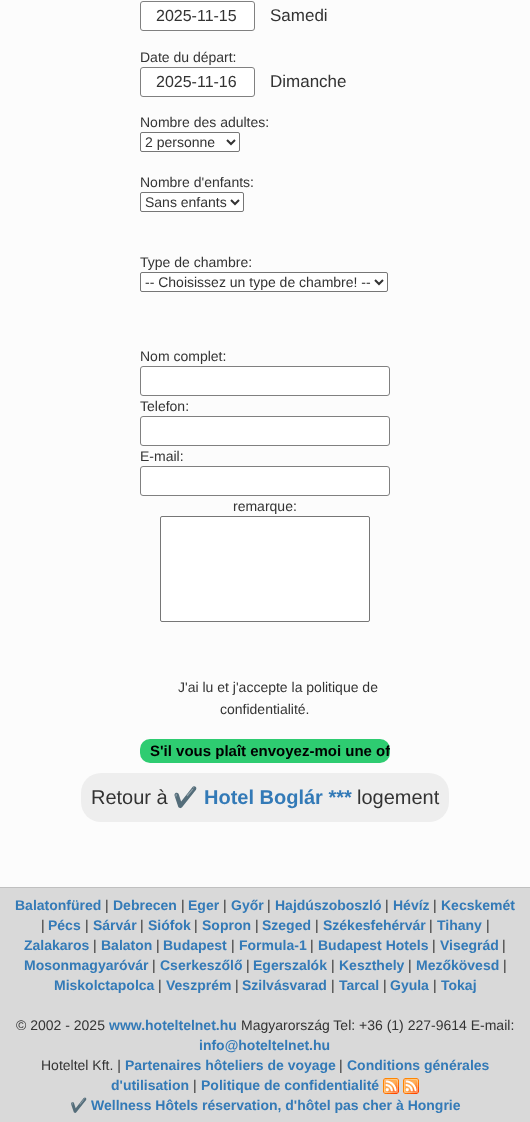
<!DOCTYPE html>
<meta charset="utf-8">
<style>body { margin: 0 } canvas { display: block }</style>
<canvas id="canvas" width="530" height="1122"></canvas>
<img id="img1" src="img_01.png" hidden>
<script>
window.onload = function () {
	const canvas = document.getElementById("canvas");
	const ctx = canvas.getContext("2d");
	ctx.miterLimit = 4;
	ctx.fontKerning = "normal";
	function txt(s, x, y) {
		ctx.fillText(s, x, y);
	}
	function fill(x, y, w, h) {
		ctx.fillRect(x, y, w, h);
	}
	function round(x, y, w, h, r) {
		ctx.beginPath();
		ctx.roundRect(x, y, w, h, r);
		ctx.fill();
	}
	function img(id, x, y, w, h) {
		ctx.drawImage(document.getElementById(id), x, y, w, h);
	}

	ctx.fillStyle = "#FCFCFC";
	fill(0, 0, 530, 1122);
	ctx.fillStyle = "#FFFFFF";
	ctx.beginPath();
	ctx.roundRect(140.5, 1.5, 114, 29, 2.5);
	ctx.fill();
	ctx.strokeStyle = "#808080";
	ctx.stroke();
	ctx.beginPath();
	ctx.roundRect(140.5, 67.5, 114, 29, 2.5);
	ctx.fill();
	ctx.stroke();
	ctx.beginPath();
	ctx.roundRect(140.5, 132.5, 99, 19, 1.5);
	ctx.fill();
	ctx.strokeStyle = "#767676";
	ctx.stroke();
	ctx.beginPath();
	ctx.moveTo(227, 140);
	ctx.lineTo(231, 144);
	ctx.lineTo(235, 140);
	ctx.strokeStyle = "#333333";
	ctx.lineWidth = 2;
	ctx.stroke();
	ctx.beginPath();
	ctx.roundRect(140.5, 192.5, 103, 19, 1.5);
	ctx.fill();
	ctx.strokeStyle = "#767676";
	ctx.lineWidth = 1;
	ctx.stroke();
	ctx.beginPath();
	ctx.moveTo(231, 200);
	ctx.lineTo(235, 204);
	ctx.lineTo(239, 200);
	ctx.strokeStyle = "#333333";
	ctx.lineWidth = 2;
	ctx.stroke();
	ctx.beginPath();
	ctx.roundRect(140.5, 272.5, 247, 19, 1.5);
	ctx.fill();
	ctx.strokeStyle = "#767676";
	ctx.lineWidth = 1;
	ctx.stroke();
	ctx.beginPath();
	ctx.moveTo(375, 280);
	ctx.lineTo(379, 284);
	ctx.lineTo(383, 280);
	ctx.strokeStyle = "#333333";
	ctx.lineWidth = 2;
	ctx.stroke();
	ctx.beginPath();
	ctx.roundRect(140.5, 366.5, 249, 29, 2.5);
	ctx.fill();
	ctx.strokeStyle = "#808080";
	ctx.lineWidth = 1;
	ctx.stroke();
	ctx.beginPath();
	ctx.roundRect(140.5, 416.5, 249, 29, 2.5);
	ctx.fill();
	ctx.stroke();
	ctx.beginPath();
	ctx.roundRect(140.5, 466.5, 249, 29, 2.5);
	ctx.fill();
	ctx.stroke();
	ctx.beginPath();
	ctx.roundRect(160.5, 516.5, 209, 105, 1.5);
	ctx.fill();
	ctx.strokeStyle = "#767676";
	ctx.stroke();
	ctx.fillStyle = "#2ECC71";
	round(140, 739, 250, 24, 10);
	ctx.fillStyle = "#EEEEEE";
	round(81, 773, 368, 49, 20);
	ctx.fillStyle = "#D9D9D9";
	fill(0, 888, 530, 234);
	ctx.fillStyle = "#C0C0C0";
	fill(0, 887, 530, 1);
	img("img1", 383, 1078, 16, 16);
	img("img1", 403, 1078, 16, 16);
	ctx.font = "16px Liberation Sans";
	ctx.fillStyle = "#333333";
	txt("2025-11-15", 156, 21);
	ctx.font = "17px Liberation Sans";
	txt("Samedi", 270, 21);
	ctx.font = "14px Liberation Sans";
	txt("Date du départ:", 140, 62);
	ctx.font = "16px Liberation Sans";
	txt("2025-11-16", 156, 87);
	ctx.font = "17px Liberation Sans";
	txt("Dimanche", 270, 87);
	ctx.font = "14px Liberation Sans";
	txt("Nombre des adultes:", 140, 127);
	txt("2 personne", 145, 147);
	txt("Nombre d'enfants:", 140, 187);
	txt("Sans enfants", 145, 207);
	txt("Type de chambre:", 140, 267);
	txt("-- Choisissez un type de chambre! --", 145, 287);
	txt("Nom complet:", 140, 361);
	txt("Telefon:", 140, 411);
	txt("E-mail:", 140, 461);
	txt("remarque:", 233, 511);
	txt("J'ai lu et j'accepte la politique de", 178, 692);
	txt("confidentialité.", 220, 714);
	ctx.save();
	ctx.beginPath();
	ctx.roundRect(140, 739, 250, 24, 10);
	ctx.clip();
	ctx.font = "bold 15px Liberation Sans";
	ctx.fillStyle = "#000000";
	txt("S'il vous plaît envoyez-moi une of", 150, 756);
	ctx.restore();
	ctx.font = "20px Liberation Sans";
	txt("Retour à", 91, 804);
	ctx.font = "bold 20px Noto Color Emoji";
	ctx.fillStyle = "#337AB7";
	txt("✔️", 173, 804);
	ctx.font = "bold 20px Liberation Sans";
	txt("Hotel Boglár ***", 204, 804);
	ctx.font = "20px Liberation Sans";
	ctx.fillStyle = "#333333";
	txt("logement", 357, 804);
	ctx.font = "bold 14px Liberation Sans";
	ctx.fillStyle = "#337AB7";
	txt("Balatonfüred", 15, 910);
	ctx.font = "14px Liberation Sans";
	ctx.fillStyle = "#333333";
	txt("|", 105, 910);
	ctx.font = "bold 14px Liberation Sans";
	ctx.fillStyle = "#337AB7";
	txt("Debrecen", 113, 910);
	ctx.font = "14px Liberation Sans";
	ctx.fillStyle = "#333333";
	txt("|", 181, 910);
	ctx.font = "bold 14px Liberation Sans";
	ctx.fillStyle = "#337AB7";
	txt("Eger", 188, 910);
	ctx.font = "14px Liberation Sans";
	ctx.fillStyle = "#333333";
	txt("|", 223, 910);
	ctx.font = "bold 14px Liberation Sans";
	ctx.fillStyle = "#337AB7";
	txt("Győr", 231, 910);
	ctx.font = "14px Liberation Sans";
	ctx.fillStyle = "#333333";
	txt("|", 267, 910);
	ctx.font = "bold 14px Liberation Sans";
	ctx.fillStyle = "#337AB7";
	txt("Hajdúszoboszló", 275, 910);
	ctx.font = "14px Liberation Sans";
	ctx.fillStyle = "#333333";
	txt("|", 385, 910);
	ctx.font = "bold 14px Liberation Sans";
	ctx.fillStyle = "#337AB7";
	txt("Hévíz", 393, 910);
	ctx.font = "14px Liberation Sans";
	ctx.fillStyle = "#333333";
	txt("|", 433, 910);
	ctx.font = "bold 14px Liberation Sans";
	ctx.fillStyle = "#337AB7";
	txt("Kecskemét", 441, 910);
	ctx.font = "14px Liberation Sans";
	ctx.fillStyle = "#333333";
	txt("|", 41, 930);
	ctx.font = "bold 14px Liberation Sans";
	ctx.fillStyle = "#337AB7";
	txt("Pécs", 48, 930);
	ctx.font = "14px Liberation Sans";
	ctx.fillStyle = "#333333";
	txt("|", 85, 930);
	ctx.font = "bold 14px Liberation Sans";
	ctx.fillStyle = "#337AB7";
	txt("Sárvár", 93, 930);
	ctx.font = "14px Liberation Sans";
	ctx.fillStyle = "#333333";
	txt("|", 140, 930);
	ctx.font = "bold 14px Liberation Sans";
	ctx.fillStyle = "#337AB7";
	txt("Siófok", 148, 930);
	ctx.font = "14px Liberation Sans";
	ctx.fillStyle = "#333333";
	txt("|", 194, 930);
	ctx.font = "bold 14px Liberation Sans";
	ctx.fillStyle = "#337AB7";
	txt("Sopron", 202, 930);
	ctx.font = "14px Liberation Sans";
	ctx.fillStyle = "#333333";
	txt("|", 255, 930);
	ctx.font = "bold 14px Liberation Sans";
	ctx.fillStyle = "#337AB7";
	txt("Szeged", 262, 930);
	ctx.font = "14px Liberation Sans";
	ctx.fillStyle = "#333333";
	txt("|", 315, 930);
	ctx.font = "bold 14px Liberation Sans";
	ctx.fillStyle = "#337AB7";
	txt("Székesfehérvár", 323, 930);
	ctx.font = "14px Liberation Sans";
	ctx.fillStyle = "#333333";
	txt("|", 429, 930);
	ctx.font = "bold 14px Liberation Sans";
	ctx.fillStyle = "#337AB7";
	txt("Tihany", 437, 930);
	ctx.font = "14px Liberation Sans";
	ctx.fillStyle = "#333333";
	txt("|", 486, 930);
	ctx.font = "bold 14px Liberation Sans";
	ctx.fillStyle = "#337AB7";
	txt("Zalakaros", 24, 950);
	ctx.font = "14px Liberation Sans";
	ctx.fillStyle = "#333333";
	txt("|", 93, 950);
	ctx.font = "bold 14px Liberation Sans";
	ctx.fillStyle = "#337AB7";
	txt("Balaton", 101, 950);
	ctx.font = "14px Liberation Sans";
	ctx.fillStyle = "#333333";
	txt("|", 156, 950);
	ctx.font = "bold 14px Liberation Sans";
	ctx.fillStyle = "#337AB7";
	txt("Budapest", 163, 950);
	ctx.font = "14px Liberation Sans";
	ctx.fillStyle = "#333333";
	txt("|", 231, 950);
	ctx.font = "bold 14px Liberation Sans";
	ctx.fillStyle = "#337AB7";
	txt("Formula-1", 239, 950);
	ctx.font = "14px Liberation Sans";
	ctx.fillStyle = "#333333";
	txt("|", 310, 950);
	ctx.font = "bold 14px Liberation Sans";
	ctx.fillStyle = "#337AB7";
	txt("Budapest Hotels", 318, 950);
	ctx.font = "14px Liberation Sans";
	ctx.fillStyle = "#333333";
	txt("|", 432, 950);
	ctx.font = "bold 14px Liberation Sans";
	ctx.fillStyle = "#337AB7";
	txt("Visegrád", 440, 950);
	ctx.font = "14px Liberation Sans";
	ctx.fillStyle = "#333333";
	txt("|", 502, 950);
	ctx.font = "bold 14px Liberation Sans";
	ctx.fillStyle = "#337AB7";
	txt("Mosonmagyaróvár", 24, 970);
	ctx.font = "14px Liberation Sans";
	ctx.fillStyle = "#333333";
	txt("|", 152, 970);
	ctx.font = "bold 14px Liberation Sans";
	ctx.fillStyle = "#337AB7";
	txt("Cserkeszőlő", 160, 970);
	ctx.font = "14px Liberation Sans";
	ctx.fillStyle = "#333333";
	txt("|", 246, 970);
	ctx.font = "bold 14px Liberation Sans";
	ctx.fillStyle = "#337AB7";
	txt("Egerszalók", 253, 970);
	ctx.font = "14px Liberation Sans";
	ctx.fillStyle = "#333333";
	txt("|", 331, 970);
	ctx.font = "bold 14px Liberation Sans";
	ctx.fillStyle = "#337AB7";
	txt("Keszthely", 339, 970);
	ctx.font = "14px Liberation Sans";
	ctx.fillStyle = "#333333";
	txt("|", 408, 970);
	ctx.font = "bold 14px Liberation Sans";
	ctx.fillStyle = "#337AB7";
	txt("Mezőkövesd", 416, 970);
	ctx.font = "14px Liberation Sans";
	ctx.fillStyle = "#333333";
	txt("|", 503, 970);
	ctx.font = "bold 14px Liberation Sans";
	ctx.fillStyle = "#337AB7";
	txt("Miskolctapolca", 54, 990);
	ctx.font = "14px Liberation Sans";
	ctx.fillStyle = "#333333";
	txt("|", 158, 990);
	ctx.font = "bold 14px Liberation Sans";
	ctx.fillStyle = "#337AB7";
	txt("Veszprém", 166, 990);
	ctx.font = "14px Liberation Sans";
	ctx.fillStyle = "#333333";
	txt("|", 235, 990);
	ctx.font = "bold 14px Liberation Sans";
	ctx.fillStyle = "#337AB7";
	txt("Szilvásvarad", 242, 990);
	ctx.font = "14px Liberation Sans";
	ctx.fillStyle = "#333333";
	txt("|", 331, 990);
	ctx.font = "bold 14px Liberation Sans";
	ctx.fillStyle = "#337AB7";
	txt("Tarcal", 339, 990);
	ctx.font = "14px Liberation Sans";
	ctx.fillStyle = "#333333";
	txt("|", 383, 990);
	ctx.font = "bold 14px Liberation Sans";
	ctx.fillStyle = "#337AB7";
	txt("Gyula", 390, 990);
	ctx.font = "14px Liberation Sans";
	ctx.fillStyle = "#333333";
	txt("|", 433, 990);
	ctx.font = "bold 14px Liberation Sans";
	ctx.fillStyle = "#337AB7";
	txt("Tokaj", 441, 990);
	ctx.font = "14px Liberation Sans";
	ctx.fillStyle = "#333333";
	txt("© 2002 - 2025", 16, 1030);
	ctx.font = "bold 14px Liberation Sans";
	ctx.fillStyle = "#337AB7";
	txt("www.hoteltelnet.hu", 109, 1030);
	ctx.font = "14px Liberation Sans";
	ctx.fillStyle = "#333333";
	txt("Magyarország Tel: +36 (1) 227-9614 E-mail:", 241, 1030);
	ctx.font = "bold 14px Liberation Sans";
	ctx.fillStyle = "#337AB7";
	txt("info@hoteltelnet.hu", 199, 1050);
	ctx.font = "14px Liberation Sans";
	ctx.fillStyle = "#333333";
	txt("Hoteltel Kft. |", 41, 1070);
	ctx.font = "bold 14px Liberation Sans";
	ctx.fillStyle = "#337AB7";
	txt("Partenaires hôteliers de voyage", 125, 1070);
	ctx.font = "14px Liberation Sans";
	ctx.fillStyle = "#333333";
	txt("|", 339, 1070);
	ctx.font = "bold 14px Liberation Sans";
	ctx.fillStyle = "#337AB7";
	txt("Conditions générales", 347, 1070);
	txt("d'utilisation", 111, 1090);
	ctx.font = "14px Liberation Sans";
	ctx.fillStyle = "#333333";
	txt("|", 193, 1090);
	ctx.font = "bold 14px Liberation Sans";
	ctx.fillStyle = "#337AB7";
	txt("Politique de confidentialité", 201, 1090);
	ctx.font = "bold 14px Noto Color Emoji";
	txt("✔️", 70, 1110);
	ctx.font = "bold 14px Liberation Sans";
	txt("Wellness Hôtels réservation, d'hôtel pas cher à Hongrie", 91, 1110);
};
</script>
